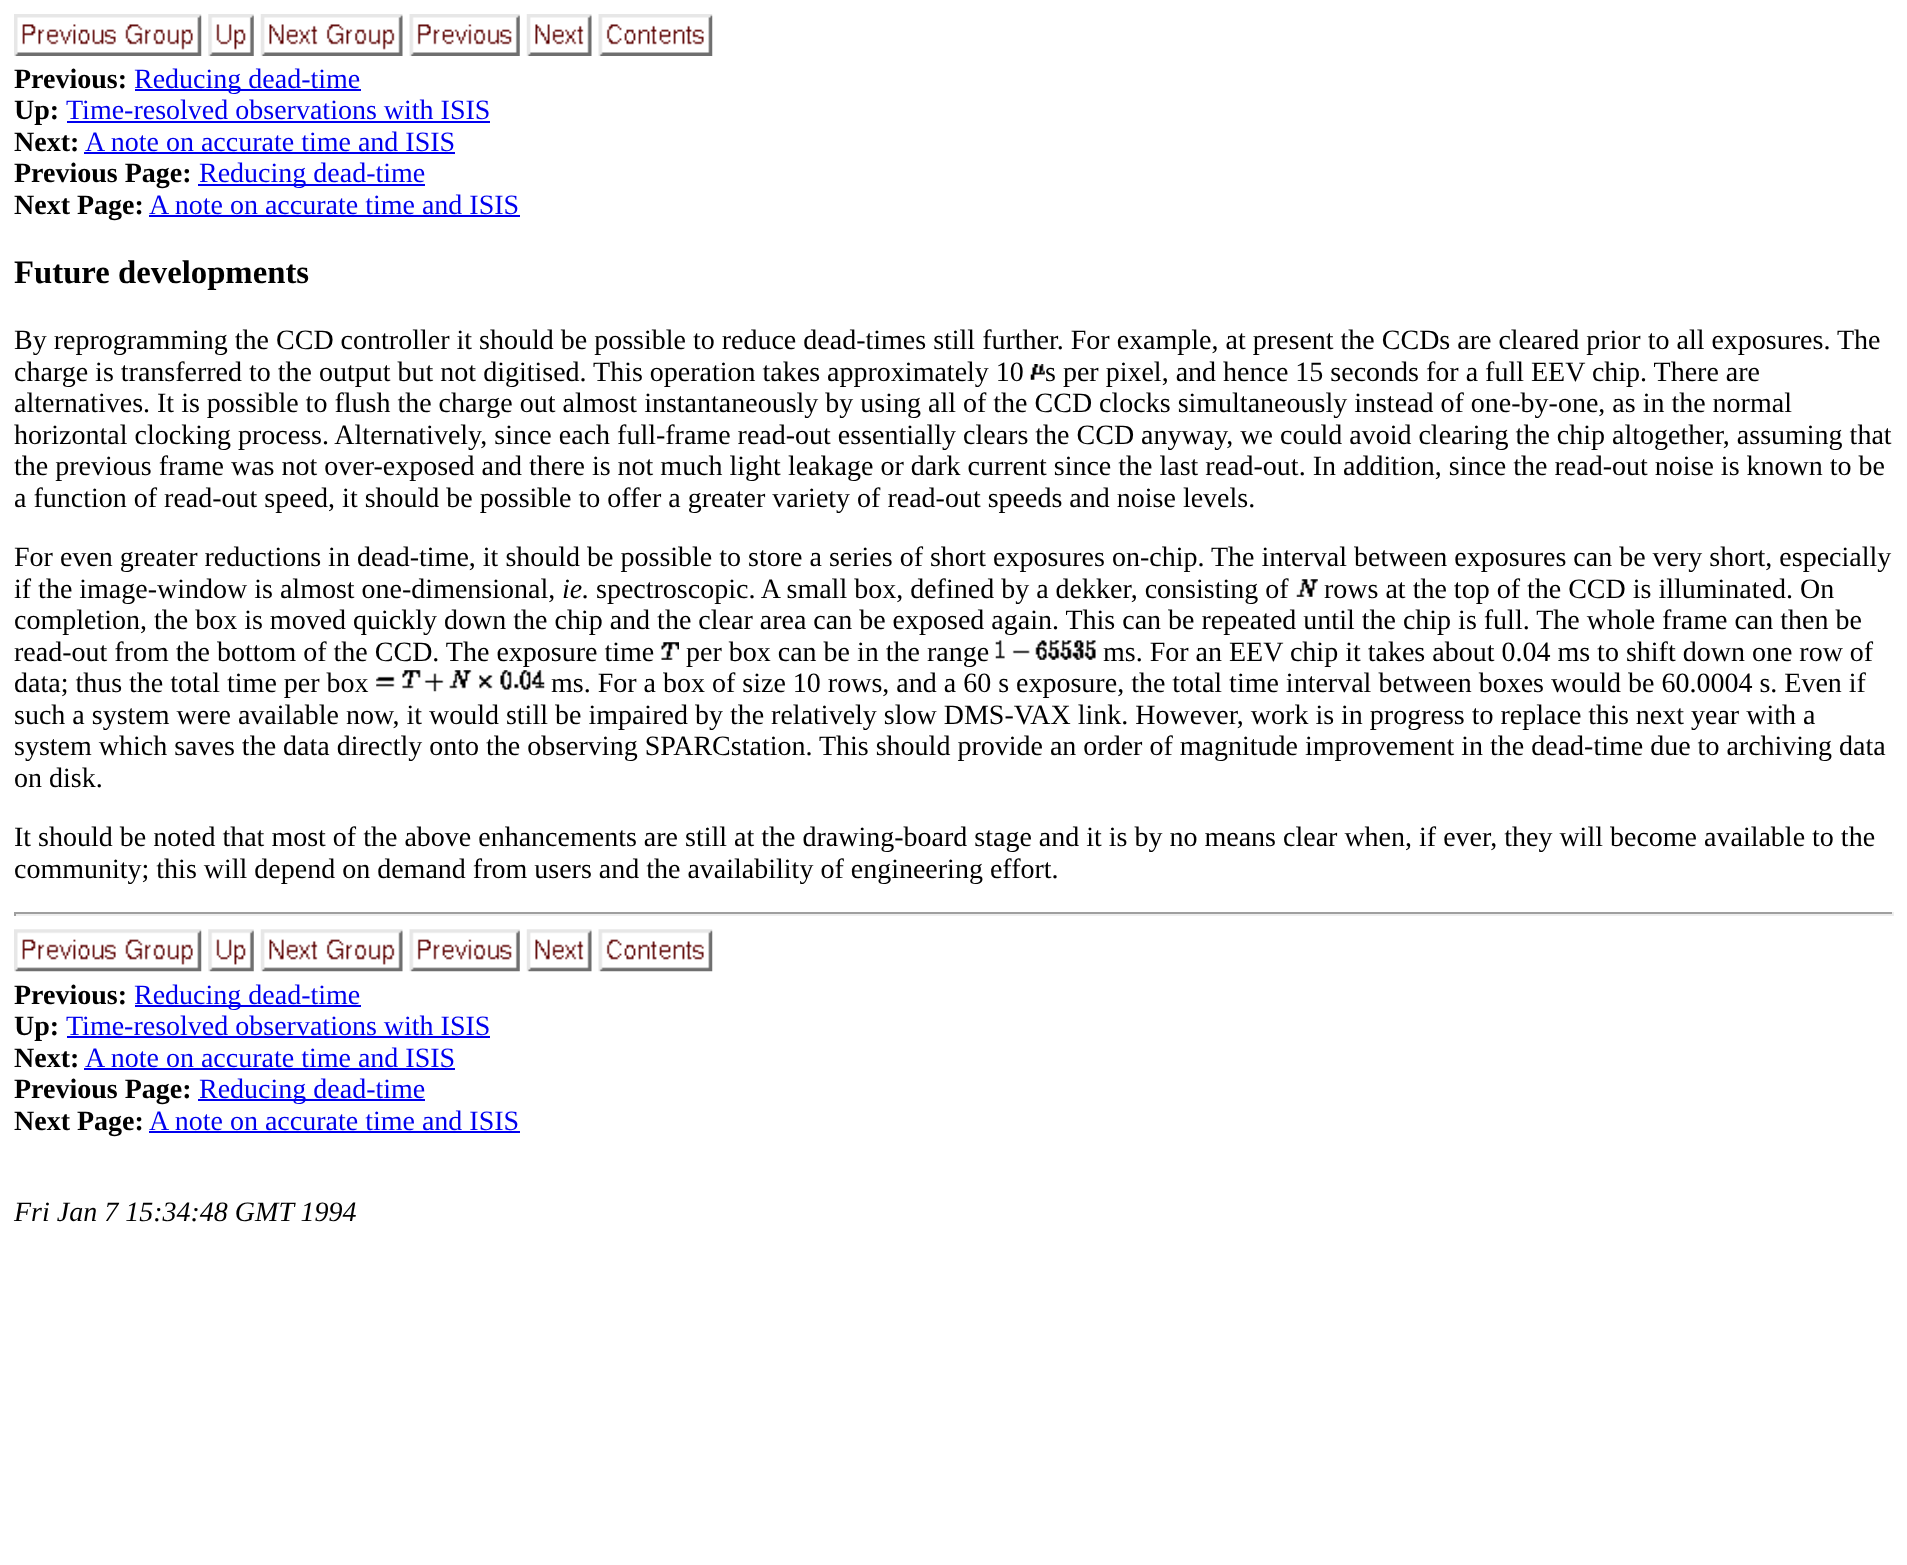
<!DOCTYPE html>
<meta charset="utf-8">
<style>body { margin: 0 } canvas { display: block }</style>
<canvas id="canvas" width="1907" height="1565"></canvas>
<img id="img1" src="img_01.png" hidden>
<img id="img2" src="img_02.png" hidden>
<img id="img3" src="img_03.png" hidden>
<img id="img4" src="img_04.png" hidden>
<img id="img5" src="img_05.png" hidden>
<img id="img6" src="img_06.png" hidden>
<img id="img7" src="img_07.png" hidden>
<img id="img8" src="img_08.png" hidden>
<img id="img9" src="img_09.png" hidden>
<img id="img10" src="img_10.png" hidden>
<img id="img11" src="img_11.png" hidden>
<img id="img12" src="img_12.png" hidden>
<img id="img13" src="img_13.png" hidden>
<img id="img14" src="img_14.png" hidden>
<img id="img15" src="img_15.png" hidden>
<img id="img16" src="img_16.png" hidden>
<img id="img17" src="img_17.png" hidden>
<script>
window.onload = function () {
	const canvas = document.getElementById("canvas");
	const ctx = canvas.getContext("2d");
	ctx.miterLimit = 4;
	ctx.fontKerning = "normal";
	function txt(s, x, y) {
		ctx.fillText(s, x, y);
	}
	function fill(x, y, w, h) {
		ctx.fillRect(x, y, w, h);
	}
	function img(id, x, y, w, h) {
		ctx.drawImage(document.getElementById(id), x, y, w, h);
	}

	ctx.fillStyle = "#FFFFFF";
	fill(0, 0, 1907, 1565);
	img("img1", 14, 14, 188, 42);
	img("img2", 208, 14, 46, 42);
	img("img3", 260, 14, 143, 42);
	img("img4", 409, 14, 111, 42);
	img("img5", 526, 14, 66, 42);
	img("img6", 598, 14, 115, 42);
	ctx.fillStyle = "#0000EE";
	fill(135, 89, 226, 2);
	fill(67, 121, 423, 2);
	fill(84, 152, 371, 2);
	fill(198, 184, 227, 2);
	fill(149, 215, 371, 2);
	img("img7", 1030, 364, 15, 16);
	img("img8", 1296, 579, 22, 18);
	img("img9", 661, 642, 18, 18);
	img("img10", 995, 640, 101, 20);
	img("img11", 376, 670, 169, 22);
	ctx.fillStyle = "#9F9F9F";
	fill(14, 912, 1880, 2);
	ctx.fillStyle = "#EEEEEE";
	fill(1892, 912, 2, 4);
	fill(14, 914, 1880, 2);
	ctx.fillStyle = "#9F9F9F";
	fill(14, 912, 2, 4);
	img("img12", 14, 929, 188, 43);
	img("img13", 208, 929, 46, 43);
	img("img14", 260, 929, 143, 43);
	img("img15", 409, 929, 111, 43);
	img("img16", 526, 929, 66, 43);
	img("img17", 598, 929, 115, 43);
	ctx.fillStyle = "#0000EE";
	fill(135, 1005, 226, 2);
	fill(67, 1036, 423, 2);
	fill(84, 1068, 371, 2);
	fill(198, 1099, 227, 2);
	fill(149, 1131, 371, 2);
	ctx.font = "bold 28px Liberation Serif";
	ctx.fillStyle = "#000000";
	txt("Previous:", 14, 88);
	ctx.font = "28px Liberation Serif";
	ctx.fillStyle = "#0000EE";
	txt("Reducing dead-time", 134, 88);
	ctx.font = "bold 28px Liberation Serif";
	ctx.fillStyle = "#000000";
	txt("Up:", 14, 119);
	ctx.font = "28px Liberation Serif";
	ctx.fillStyle = "#0000EE";
	txt("Time-resolved observations with ISIS", 66, 119);
	ctx.font = "bold 28px Liberation Serif";
	ctx.fillStyle = "#000000";
	txt("Next:", 14, 151);
	ctx.font = "28px Liberation Serif";
	ctx.fillStyle = "#0000EE";
	txt("A note on accurate time and ISIS", 85, 151);
	ctx.font = "bold 28px Liberation Serif";
	ctx.fillStyle = "#000000";
	txt("Previous Page:", 14, 182);
	ctx.font = "28px Liberation Serif";
	ctx.fillStyle = "#0000EE";
	txt("Reducing dead-time", 199, 182);
	ctx.font = "bold 28px Liberation Serif";
	ctx.fillStyle = "#000000";
	txt("Next Page:", 14, 214);
	ctx.font = "28px Liberation Serif";
	ctx.fillStyle = "#0000EE";
	txt("A note on accurate time and ISIS", 149, 214);
	ctx.font = "bold 32.75px Liberation Serif";
	ctx.fillStyle = "#000000";
	txt("Future developments", 14, 283);
	ctx.font = "28px Liberation Serif";
	txt("By reprogramming the CCD controller it should be possible to reduce dead-times still further. For example, at present the CCDs are cleared prior to all exposures. The", 14, 349);
	txt("charge is transferred to the output but not digitised. This operation takes approximately 10", 14, 381);
	txt("s per pixel, and hence 15 seconds for a full EEV chip. There are", 1045, 381);
	txt("alternatives. It is possible to flush the charge out almost instantaneously by using all of the CCD clocks simultaneously instead of one-by-one, as in the normal", 14, 412);
	txt("horizontal clocking process. Alternatively, since each full-frame read-out essentially clears the CCD anyway, we could avoid clearing the chip altogether, assuming that", 14, 444);
	txt("the previous frame was not over-exposed and there is not much light leakage or dark current since the last read-out. In addition, since the read-out noise is known to be", 14, 475);
	txt("a function of read-out speed, it should be possible to offer a greater variety of read-out speeds and noise levels.", 14, 507);
	txt("For even greater reductions in dead-time, it should be possible to store a series of short exposures on-chip. The interval between exposures can be very short, especially", 14, 566);
	txt("if the image-window is almost one-dimensional,", 14, 598);
	ctx.font = "italic 28px Liberation Serif";
	txt("ie.", 562, 598);
	ctx.font = "28px Liberation Serif";
	txt("spectroscopic. A small box, defined by a dekker, consisting of", 596, 598);
	txt("rows at the top of the CCD is illuminated. On", 1324, 598);
	txt("completion, the box is moved quickly down the chip and the clear area can be exposed again. This can be repeated until the chip is full. The whole frame can then be", 14, 629);
	txt("read-out from the bottom of the CCD. The exposure time", 14, 661);
	txt("per box can be in the range", 686, 661);
	txt("ms. For an EEV chip it takes about 0.04 ms to shift down one row of", 1103, 661);
	txt("data; thus the total time per box", 14, 692);
	txt("ms. For a box of size 10 rows, and a 60 s exposure, the total time interval between boxes would be 60.0004 s. Even if", 551, 692);
	txt("such a system were available now, it would still be impaired by the relatively slow DMS-VAX link. However, work is in progress to replace this next year with a", 14, 724);
	txt("system which saves the data directly onto the observing SPARCstation. This should provide an order of magnitude improvement in the dead-time due to archiving data", 14, 755);
	txt("on disk.", 14, 787);
	txt("It should be noted that most of the above enhancements are still at the drawing-board stage and it is by no means clear when, if ever, they will become available to the", 14, 846);
	txt("community; this will depend on demand from users and the availability of engineering effort.", 14, 878);
	ctx.font = "bold 28px Liberation Serif";
	txt("Previous:", 14, 1004);
	ctx.font = "28px Liberation Serif";
	ctx.fillStyle = "#0000EE";
	txt("Reducing dead-time", 134, 1004);
	ctx.font = "bold 28px Liberation Serif";
	ctx.fillStyle = "#000000";
	txt("Up:", 14, 1035);
	ctx.font = "28px Liberation Serif";
	ctx.fillStyle = "#0000EE";
	txt("Time-resolved observations with ISIS", 66, 1035);
	ctx.font = "bold 28px Liberation Serif";
	ctx.fillStyle = "#000000";
	txt("Next:", 14, 1067);
	ctx.font = "28px Liberation Serif";
	ctx.fillStyle = "#0000EE";
	txt("A note on accurate time and ISIS", 85, 1067);
	ctx.font = "bold 28px Liberation Serif";
	ctx.fillStyle = "#000000";
	txt("Previous Page:", 14, 1098);
	ctx.font = "28px Liberation Serif";
	ctx.fillStyle = "#0000EE";
	txt("Reducing dead-time", 199, 1098);
	ctx.font = "bold 28px Liberation Serif";
	ctx.fillStyle = "#000000";
	txt("Next Page:", 14, 1130);
	ctx.font = "28px Liberation Serif";
	ctx.fillStyle = "#0000EE";
	txt("A note on accurate time and ISIS", 149, 1130);
	ctx.font = "italic 28px Liberation Serif";
	ctx.fillStyle = "#000000";
	txt("Fri Jan 7 15:34:48 GMT 1994", 14, 1221);
};
</script>
